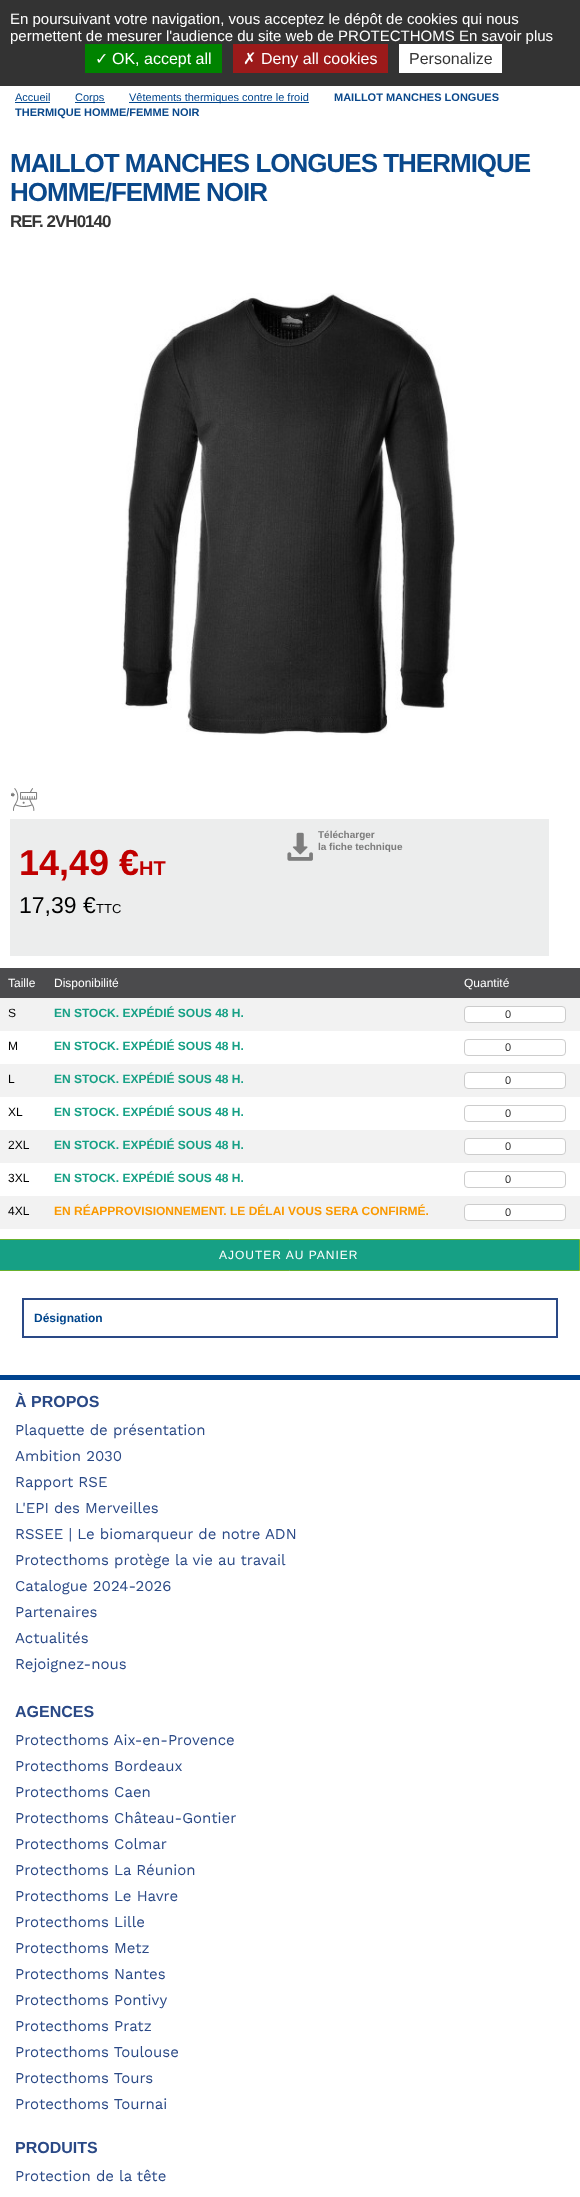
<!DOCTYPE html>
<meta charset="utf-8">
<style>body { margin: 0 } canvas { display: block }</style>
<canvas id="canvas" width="580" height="2197"></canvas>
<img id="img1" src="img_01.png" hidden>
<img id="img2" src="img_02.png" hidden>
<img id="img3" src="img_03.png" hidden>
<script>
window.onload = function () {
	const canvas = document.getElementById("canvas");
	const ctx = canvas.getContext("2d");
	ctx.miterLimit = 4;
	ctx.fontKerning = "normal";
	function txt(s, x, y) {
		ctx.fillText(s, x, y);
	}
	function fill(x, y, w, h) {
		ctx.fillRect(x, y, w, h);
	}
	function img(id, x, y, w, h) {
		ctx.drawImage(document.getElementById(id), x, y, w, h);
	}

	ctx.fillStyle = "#FFFFFF";
	fill(0, 0, 580, 2197);
	ctx.fillStyle = "#333333";
	fill(0, 0, 580, 86);
	ctx.fillStyle = "#FFFFFF";
	fill(399, 44, 103, 29);
	ctx.fillStyle = "#00458C";
	fill(15, 102, 35, 1);
	fill(75, 102, 30, 1);
	fill(129, 102, 180, 1);
	img("img1", 121, 293, 334, 442);
	img("img2", 11, 788, 27, 23);
	ctx.fillStyle = "#ECEDED";
	fill(10, 819, 539, 137);
	img("img3", 287, 832, 26, 29);
	ctx.fillStyle = "#4B4B4D";
	fill(0, 968, 580, 30);
	ctx.fillStyle = "#F2F2F2";
	fill(0, 998, 580, 33);
	ctx.fillStyle = "#FFFFFF";
	ctx.beginPath();
	ctx.roundRect(464.5, 1006.5, 101, 16, 3.5);
	ctx.fill();
	ctx.strokeStyle = "#CCCCCC";
	ctx.stroke();
	ctx.beginPath();
	ctx.roundRect(464.5, 1039.5, 101, 16, 3.5);
	ctx.stroke();
	ctx.fillStyle = "#F2F2F2";
	fill(0, 1064, 580, 33);
	ctx.fillStyle = "#FFFFFF";
	ctx.beginPath();
	ctx.roundRect(464.5, 1072.5, 101, 16, 3.5);
	ctx.fill();
	ctx.stroke();
	ctx.beginPath();
	ctx.roundRect(464.5, 1105.5, 101, 16, 3.5);
	ctx.stroke();
	ctx.fillStyle = "#F2F2F2";
	fill(0, 1130, 580, 33);
	ctx.fillStyle = "#FFFFFF";
	ctx.beginPath();
	ctx.roundRect(464.5, 1138.5, 101, 16, 3.5);
	ctx.fill();
	ctx.stroke();
	ctx.beginPath();
	ctx.roundRect(464.5, 1171.5, 101, 16, 3.5);
	ctx.stroke();
	ctx.fillStyle = "#F2F2F2";
	fill(0, 1196, 580, 33);
	ctx.fillStyle = "#FFFFFF";
	ctx.beginPath();
	ctx.roundRect(464.5, 1204.5, 101, 16, 3.5);
	ctx.fill();
	ctx.stroke();
	ctx.fillStyle = "#16A085";
	ctx.beginPath();
	ctx.rect(-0.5, 1239.5, 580, 31);
	ctx.fill();
	ctx.strokeStyle = "#68B12D";
	ctx.stroke();
	ctx.strokeStyle = "#2A4986";
	ctx.lineWidth = 2;
	ctx.strokeRect(23, 1299, 534, 38);
	ctx.fillStyle = "#00448F";
	fill(0, 1375, 580, 5);
	ctx.font = "15px Liberation Sans";
	ctx.fillStyle = "#FFFFFF";
	txt("En poursuivant votre navigation, vous acceptez le dépôt de cookies qui nous", 10, 24);
	txt("permettent de mesurer l'audience du site web de PROTECTHOMS En savoir plus", 10, 41);
	ctx.fillStyle = "#008300";
	fill(85, 44, 137, 29);
	ctx.font = "16px DejaVu Sans";
	ctx.fillStyle = "#FFFFFF";
	txt("✓", 95, 64);
	ctx.font = "16px Liberation Sans";
	txt("OK, accept all", 112, 64);
	ctx.fillStyle = "#9C1A1A";
	fill(233, 44, 155, 29);
	ctx.font = "16px DejaVu Sans";
	ctx.fillStyle = "#FFFFFF";
	txt("✗", 243, 64);
	ctx.font = "16px Liberation Sans";
	txt("Deny all cookies", 261, 64);
	ctx.fillStyle = "#353535";
	txt("Personalize", 409, 64);
	ctx.font = "11px Liberation Sans";
	ctx.fillStyle = "#00458C";
	txt("Accueil", 15, 101);
	txt("Corps", 75, 101);
	txt("Vêtements thermiques contre le froid", 129, 101);
	ctx.font = "bold 11px Liberation Sans";
	ctx.fillStyle = "#0A488B";
	txt("MAILLOT MANCHES LONGUES", 334, 101);
	txt("THERMIQUE HOMME/FEMME NOIR", 15, 116);
	ctx.letterSpacing = "-1px";
	ctx.font = "bold 26px Liberation Sans";
	txt("MAILLOT MANCHES LONGUES THERMIQUE", 10, 172);
	txt("HOMME/FEMME NOIR", 10, 201);
	ctx.font = "bold 17px Liberation Sans";
	ctx.fillStyle = "#353535";
	txt("REF. 2VH0140", 10, 227);
	ctx.letterSpacing = "0px";
	ctx.font = "bold 10px Liberation Sans";
	ctx.fillStyle = "#7C7C7C";
	txt("Télécharger", 318, 838);
	txt("la fiche technique", 318, 850);
	ctx.font = "bold 36px Liberation Sans";
	ctx.fillStyle = "#C00000";
	txt("14,49 €", 19, 875);
	ctx.font = "bold 20px Liberation Sans";
	txt("HT", 139, 875);
	ctx.font = "23px Liberation Sans";
	ctx.fillStyle = "#000000";
	txt("17,39 €", 19, 913);
	ctx.font = "13px Liberation Sans";
	txt("TTC", 96, 913);
	ctx.font = "12px Liberation Sans";
	ctx.fillStyle = "#FFFFFF";
	txt("Taille", 8, 987);
	txt("Disponibilité", 54, 987);
	txt("Quantité", 464, 987);
	ctx.fillStyle = "#000000";
	txt("S", 8, 1017);
	ctx.font = "bold 12px Liberation Sans";
	ctx.fillStyle = "#16A085";
	txt("EN STOCK. EXPÉDIÉ SOUS 48 H.", 54, 1017);
	ctx.font = "11px Liberation Sans";
	ctx.fillStyle = "#2F2F2F";
	txt("0", 505, 1018);
	ctx.font = "12px Liberation Sans";
	ctx.fillStyle = "#000000";
	txt("M", 8, 1050);
	ctx.font = "bold 12px Liberation Sans";
	ctx.fillStyle = "#16A085";
	txt("EN STOCK. EXPÉDIÉ SOUS 48 H.", 54, 1050);
	ctx.font = "11px Liberation Sans";
	ctx.fillStyle = "#2F2F2F";
	txt("0", 505, 1051);
	ctx.font = "12px Liberation Sans";
	ctx.fillStyle = "#000000";
	txt("L", 8, 1083);
	ctx.font = "bold 12px Liberation Sans";
	ctx.fillStyle = "#16A085";
	txt("EN STOCK. EXPÉDIÉ SOUS 48 H.", 54, 1083);
	ctx.font = "11px Liberation Sans";
	ctx.fillStyle = "#2F2F2F";
	txt("0", 505, 1084);
	ctx.font = "12px Liberation Sans";
	ctx.fillStyle = "#000000";
	txt("XL", 8, 1116);
	ctx.font = "bold 12px Liberation Sans";
	ctx.fillStyle = "#16A085";
	txt("EN STOCK. EXPÉDIÉ SOUS 48 H.", 54, 1116);
	ctx.font = "11px Liberation Sans";
	ctx.fillStyle = "#2F2F2F";
	txt("0", 505, 1117);
	ctx.font = "12px Liberation Sans";
	ctx.fillStyle = "#000000";
	txt("2XL", 8, 1149);
	ctx.font = "bold 12px Liberation Sans";
	ctx.fillStyle = "#16A085";
	txt("EN STOCK. EXPÉDIÉ SOUS 48 H.", 54, 1149);
	ctx.font = "11px Liberation Sans";
	ctx.fillStyle = "#2F2F2F";
	txt("0", 505, 1150);
	ctx.font = "12px Liberation Sans";
	ctx.fillStyle = "#000000";
	txt("3XL", 8, 1182);
	ctx.font = "bold 12px Liberation Sans";
	ctx.fillStyle = "#16A085";
	txt("EN STOCK. EXPÉDIÉ SOUS 48 H.", 54, 1182);
	ctx.font = "11px Liberation Sans";
	ctx.fillStyle = "#2F2F2F";
	txt("0", 505, 1183);
	ctx.font = "12px Liberation Sans";
	ctx.fillStyle = "#000000";
	txt("4XL", 8, 1215);
	ctx.font = "bold 12px Liberation Sans";
	ctx.fillStyle = "#FA9900";
	txt("EN RÉAPPROVISIONNEMENT. LE DÉLAI VOUS SERA CONFIRMÉ.", 54, 1215);
	ctx.font = "11px Liberation Sans";
	ctx.fillStyle = "#2F2F2F";
	txt("0", 505, 1216);
	ctx.letterSpacing = "1px";
	ctx.font = "12px Liberation Sans";
	ctx.fillStyle = "#FFFFFF";
	txt("AJOUTER AU PANIER", 219, 1259);
	ctx.letterSpacing = "0px";
	ctx.font = "bold 12px Liberation Sans";
	ctx.fillStyle = "#00458C";
	txt("Désignation", 34, 1322);
	ctx.font = "bold 16px Liberation Sans";
	ctx.fillStyle = "#2A4986";
	txt("À PROPOS", 15, 1407);
	ctx.font = "15px Work Sans";
	txt("Plaquette de présentation", 15, 1435);
	txt("Ambition 2030", 15, 1461);
	txt("Rapport RSE", 15, 1487);
	txt("L'EPI des Merveilles", 15, 1513);
	txt("RSSEE | Le biomarqueur de notre ADN", 15, 1539);
	txt("Protecthoms protège la vie au travail", 15, 1565);
	txt("Catalogue 2024-2026", 15, 1591);
	txt("Partenaires", 15, 1617);
	txt("Actualités", 15, 1643);
	txt("Rejoignez-nous", 15, 1669);
	ctx.font = "bold 16px Liberation Sans";
	txt("AGENCES", 15, 1717);
	ctx.font = "15px Work Sans";
	txt("Protecthoms Aix-en-Provence", 15, 1745);
	txt("Protecthoms Bordeaux", 15, 1771);
	txt("Protecthoms Caen", 15, 1797);
	txt("Protecthoms Château-Gontier", 15, 1823);
	txt("Protecthoms Colmar", 15, 1849);
	txt("Protecthoms La Réunion", 15, 1875);
	txt("Protecthoms Le Havre", 15, 1901);
	txt("Protecthoms Lille", 15, 1927);
	txt("Protecthoms Metz", 15, 1953);
	txt("Protecthoms Nantes", 15, 1979);
	txt("Protecthoms Pontivy", 15, 2005);
	txt("Protecthoms Pratz", 15, 2031);
	txt("Protecthoms Toulouse", 15, 2057);
	txt("Protecthoms Tours", 15, 2083);
	txt("Protecthoms Tournai", 15, 2109);
	ctx.font = "bold 16px Liberation Sans";
	txt("PRODUITS", 15, 2153);
	ctx.font = "15px Work Sans";
	txt("Protection de la tête", 15, 2181);
};
</script>
